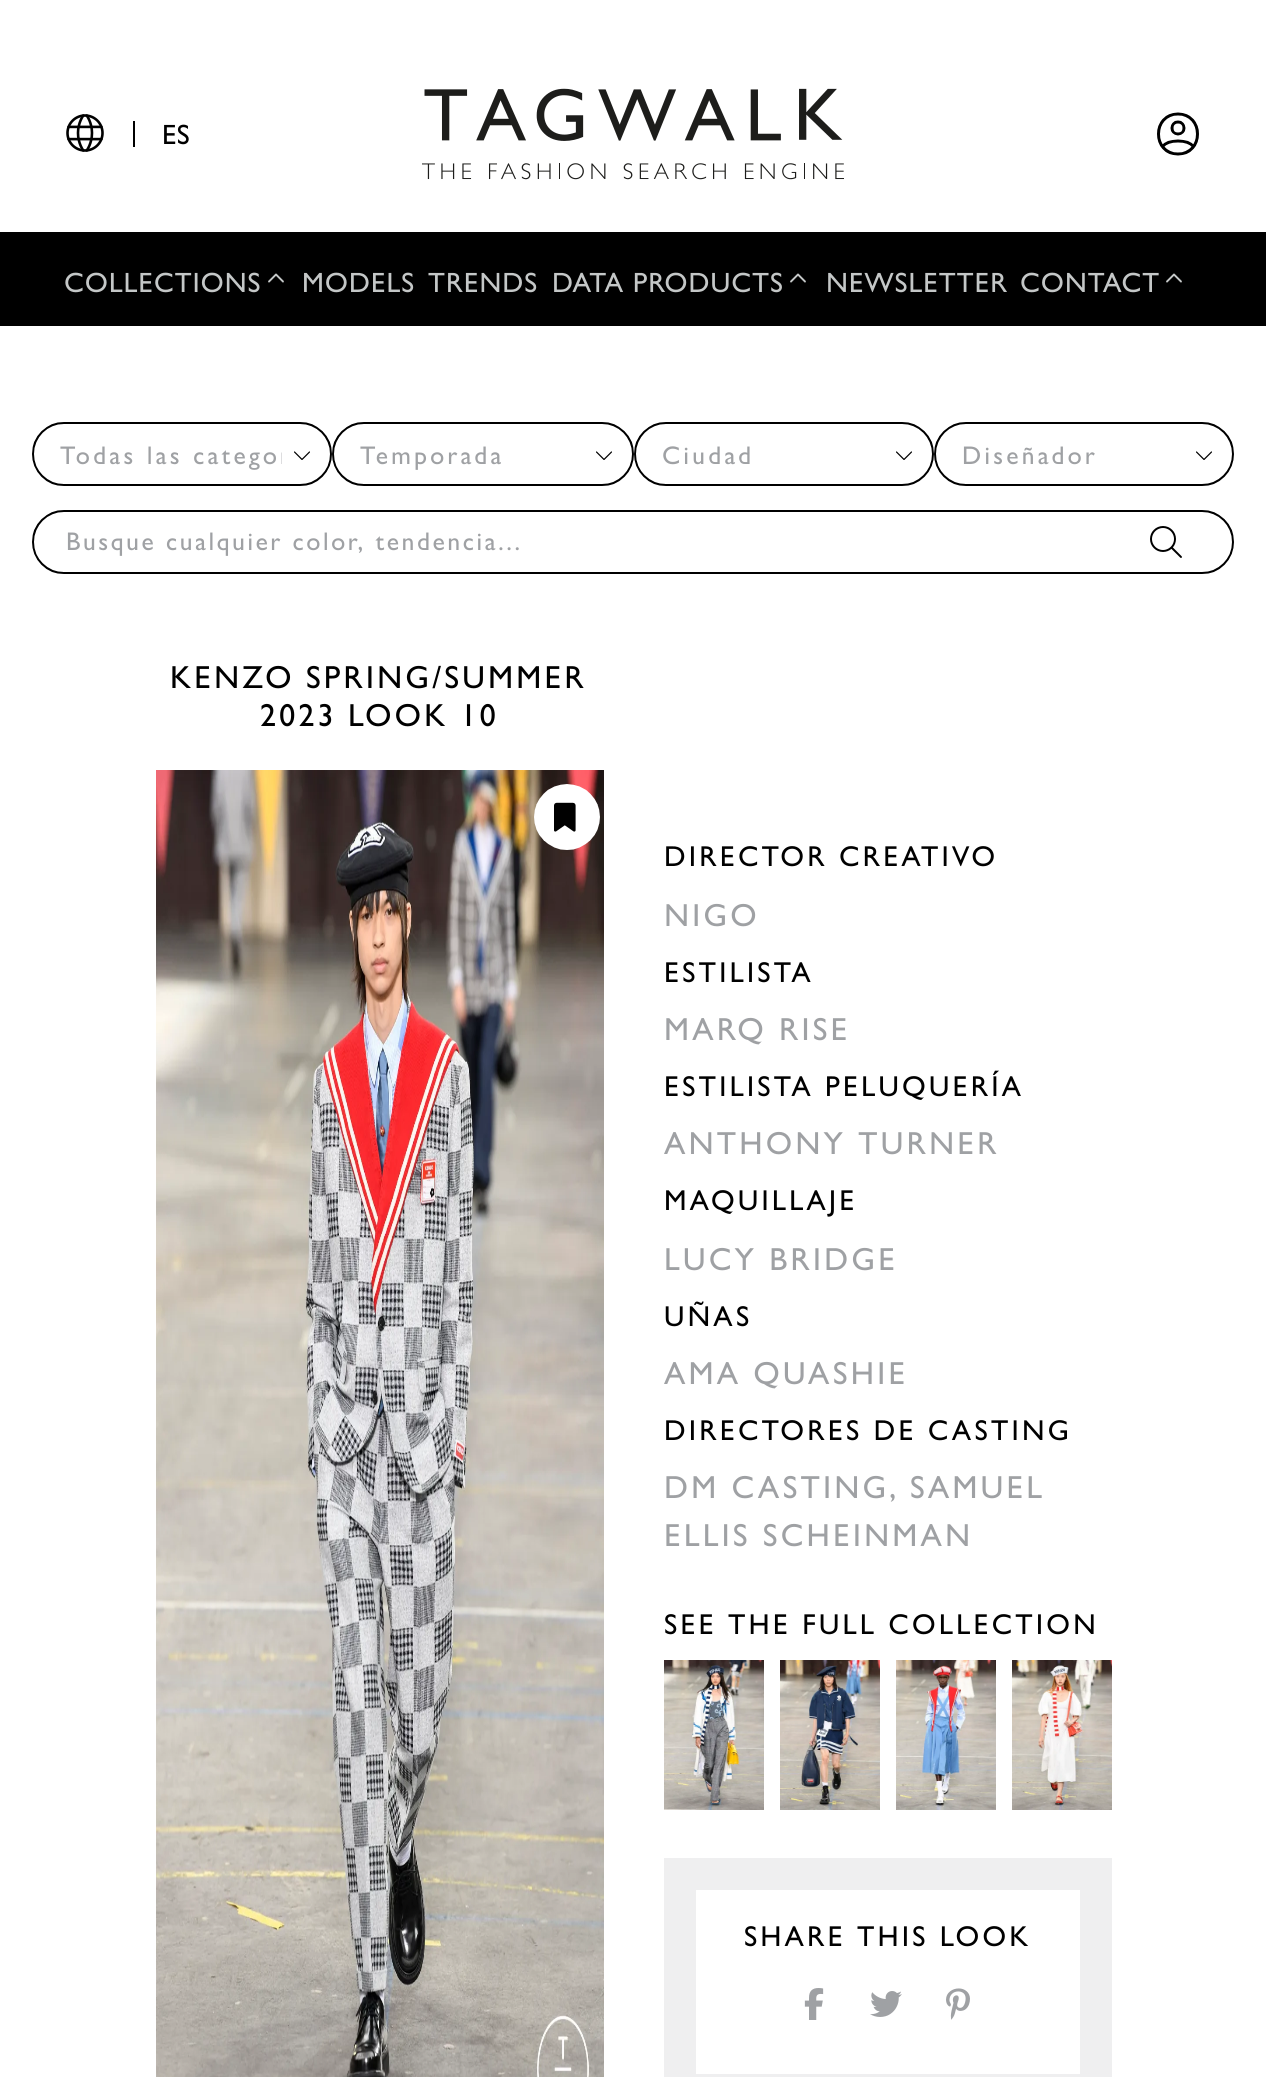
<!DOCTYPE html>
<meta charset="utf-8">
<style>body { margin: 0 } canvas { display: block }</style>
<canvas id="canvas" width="1266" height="2077"></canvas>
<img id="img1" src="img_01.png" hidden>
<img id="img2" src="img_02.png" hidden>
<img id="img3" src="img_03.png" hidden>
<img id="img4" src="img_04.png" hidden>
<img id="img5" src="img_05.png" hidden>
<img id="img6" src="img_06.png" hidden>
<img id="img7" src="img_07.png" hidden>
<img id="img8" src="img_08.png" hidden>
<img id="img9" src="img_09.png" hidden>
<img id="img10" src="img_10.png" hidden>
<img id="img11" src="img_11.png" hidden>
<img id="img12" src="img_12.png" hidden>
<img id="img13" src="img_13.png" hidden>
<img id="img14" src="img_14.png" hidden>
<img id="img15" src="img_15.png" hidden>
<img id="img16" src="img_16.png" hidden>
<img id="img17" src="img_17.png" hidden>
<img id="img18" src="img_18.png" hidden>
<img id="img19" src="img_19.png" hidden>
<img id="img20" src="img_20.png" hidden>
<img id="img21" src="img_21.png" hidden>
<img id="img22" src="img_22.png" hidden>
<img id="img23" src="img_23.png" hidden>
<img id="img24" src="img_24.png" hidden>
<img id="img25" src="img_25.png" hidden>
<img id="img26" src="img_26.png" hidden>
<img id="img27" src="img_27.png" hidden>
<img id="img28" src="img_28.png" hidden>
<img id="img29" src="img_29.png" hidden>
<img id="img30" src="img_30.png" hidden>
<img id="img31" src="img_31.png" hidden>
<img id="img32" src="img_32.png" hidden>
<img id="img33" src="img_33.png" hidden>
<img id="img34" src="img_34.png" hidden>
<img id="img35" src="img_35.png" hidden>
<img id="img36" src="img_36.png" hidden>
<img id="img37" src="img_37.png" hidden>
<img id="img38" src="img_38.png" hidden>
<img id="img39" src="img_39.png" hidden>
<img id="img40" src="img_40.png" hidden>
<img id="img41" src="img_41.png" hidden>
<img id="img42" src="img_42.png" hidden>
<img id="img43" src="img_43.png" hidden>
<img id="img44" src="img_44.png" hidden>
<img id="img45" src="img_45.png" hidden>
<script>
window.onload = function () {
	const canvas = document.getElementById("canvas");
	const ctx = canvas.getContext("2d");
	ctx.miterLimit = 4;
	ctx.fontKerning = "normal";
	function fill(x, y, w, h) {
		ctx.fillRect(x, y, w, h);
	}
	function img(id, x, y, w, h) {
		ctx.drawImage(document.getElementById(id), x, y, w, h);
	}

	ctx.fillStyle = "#FFFFFF";
	fill(0, 0, 1266, 2077);
	img("img1", 66, 114, 38, 38);
	ctx.fillStyle = "#000000";
	fill(133, 121, 2, 26);
	img("img2", 164, 124, 25, 21);
	img("img3", 422, 88, 422, 92);
	ctx.beginPath();
	ctx.moveTo(1178, 114);
	ctx.bezierCurveTo(1152, 114, 1152, 154, 1178, 154);
	ctx.bezierCurveTo(1204, 154, 1204, 114, 1178, 114);
	ctx.closePath();
	ctx.moveTo(1162.5, 146.5);
	ctx.bezierCurveTo(1168.5, 139, 1187.5, 139, 1193.5, 146.5);
	ctx.moveTo(1178, 134);
	ctx.bezierCurveTo(1186, 134, 1186, 122, 1178, 122);
	ctx.bezierCurveTo(1170, 122, 1170, 134, 1178, 134);
	ctx.closePath();
	ctx.strokeStyle = "#000000";
	ctx.lineWidth = 3;
	ctx.lineCap = "round";
	ctx.lineJoin = "round";
	ctx.stroke();
	fill(0, 232, 1266, 94);
	img("img4", 65, 272, 195, 21);
	ctx.beginPath();
	ctx.moveTo(269, 281.5);
	ctx.lineTo(276, 274.5);
	ctx.lineTo(283, 281.5);
	ctx.strokeStyle = "#C4C7C7";
	ctx.lineWidth = 1.8;
	ctx.stroke();
	img("img5", 304, 272, 110, 21);
	img("img6", 428, 272, 109, 21);
	img("img7", 554, 272, 228, 21);
	ctx.beginPath();
	ctx.moveTo(791, 281.5);
	ctx.lineTo(798, 274.5);
	ctx.lineTo(805, 281.5);
	ctx.stroke();
	img("img8", 828, 272, 179, 21);
	img("img9", 1021, 272, 138, 21);
	ctx.beginPath();
	ctx.moveTo(1167, 281.5);
	ctx.lineTo(1174, 274.5);
	ctx.lineTo(1181, 281.5);
	ctx.stroke();
	ctx.beginPath();
	ctx.roundRect(33, 423, 298, 62, 31);
	ctx.strokeStyle = "#000000";
	ctx.lineWidth = 2;
	ctx.lineJoin = "miter";
	ctx.stroke();
	img("img10", 60, 446, 222, 24);
	img("img11", 294, 451, 16, 9);
	ctx.beginPath();
	ctx.roundRect(333, 423, 300, 62, 31);
	ctx.stroke();
	img("img12", 360, 446, 141, 24);
	img("img11", 596, 451, 16, 9);
	ctx.beginPath();
	ctx.roundRect(635, 423, 298, 62, 31);
	ctx.stroke();
	img("img13", 663, 446, 87, 19);
	img("img11", 896, 451, 16, 9);
	ctx.beginPath();
	ctx.roundRect(935, 423, 298, 62, 31);
	ctx.stroke();
	img("img14", 963, 446, 132, 19);
	img("img11", 1196, 451, 16, 9);
	ctx.beginPath();
	ctx.roundRect(33, 511, 1200, 62, 31);
	ctx.stroke();
	img("img15", 67, 532, 452, 24);
	img("img16", 1150, 526, 32, 32);
	img("img17", 172, 665, 119, 24);
	img("img18", 307, 665, 277, 24);
	img("img19", 261, 703, 71, 24);
	img("img20", 350, 703, 145, 24);
	img("img21", 156, 770, 448, 1307);
	ctx.fillStyle = "#FFFFFF";
	ctx.beginPath();
	ctx.arc(567, 817, 33, 0, Math.PI * 2);
	ctx.fill();
	img("img22", 554, 802, 22, 30);
	img("img23", 666, 846, 328, 21);
	img("img24", 666, 903, 90, 24);
	img("img25", 666, 962, 145, 21);
	img("img26", 666, 1017, 180, 28);
	img("img27", 666, 1070, 355, 30);
	img("img28", 664, 1131, 333, 24);
	img("img29", 666, 1190, 187, 27);
	img("img30", 666, 1247, 228, 24);
	img("img31", 665, 1301, 84, 26);
	img("img32", 664, 1361, 240, 28);
	img("img33", 666, 1420, 401, 21);
	img("img34", 666, 1475, 229, 27);
	img("img35", 911, 1475, 131, 24);
	img("img36", 666, 1523, 302, 24);
	img("img37", 665, 1614, 429, 21);
	img("img38", 664, 1660, 100, 150);
	img("img39", 780, 1660, 100, 150);
	img("img40", 896, 1660, 100, 150);
	img("img41", 1012, 1660, 100, 150);
	ctx.strokeStyle = "#EFEFF0";
	ctx.lineWidth = 32;
	ctx.strokeRect(680, 1874, 416, 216);
	img("img42", 745, 1926, 284, 21);
	img("img43", 804, 1988, 20, 32);
	img("img44", 870, 1991, 32, 26);
	img("img45", 946, 1988, 24, 32);
};
</script>
